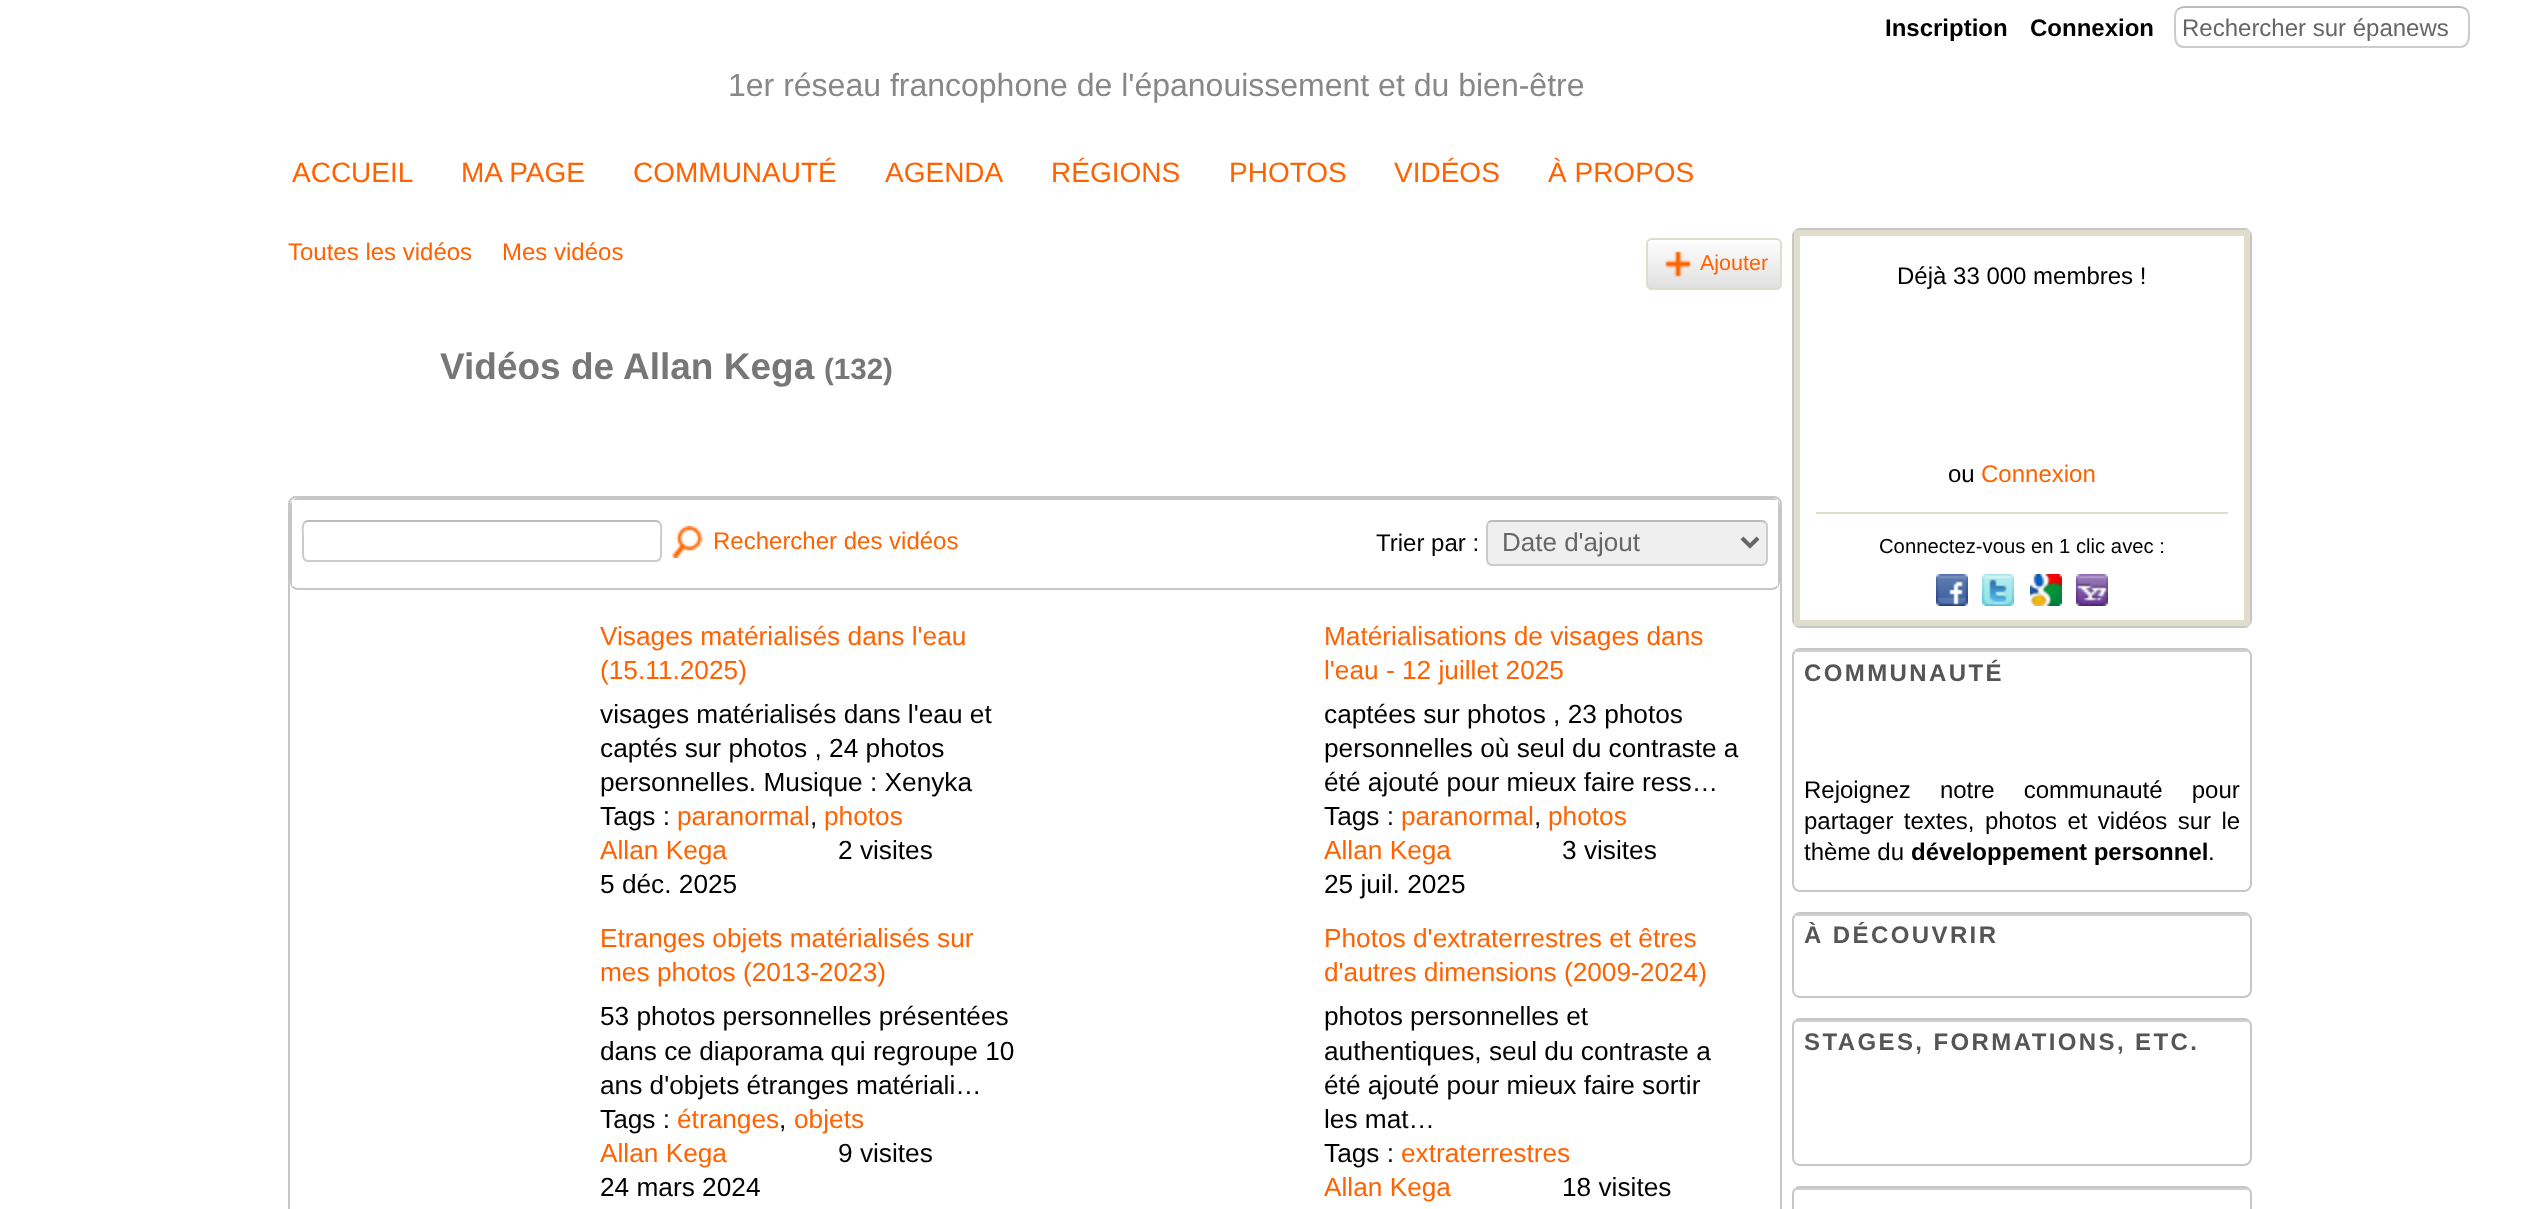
<!DOCTYPE html>
<meta charset="utf-8">
<style>body { margin: 0 } canvas { display: block }</style>
<canvas id="canvas" width="2540" height="1209"></canvas>
<img id="img1" src="img_01.png" hidden>
<img id="img2" src="img_02.png" hidden>
<img id="img3" src="img_03.png" hidden>
<img id="img4" src="img_04.png" hidden>
<img id="img5" src="img_05.png" hidden>
<img id="img6" src="img_06.png" hidden>
<img id="img7" src="img_07.png" hidden>
<script>
window.onload = function () {
	const canvas = document.getElementById("canvas");
	const ctx = canvas.getContext("2d");
	ctx.miterLimit = 4;
	ctx.fontKerning = "normal";
	function txt(s, x, y) {
		ctx.fillText(s, x, y);
	}
	function fill(x, y, w, h) {
		ctx.fillRect(x, y, w, h);
	}
	function round(x, y, w, h, r) {
		ctx.beginPath();
		ctx.roundRect(x, y, w, h, r);
		ctx.fill();
	}
	function img(id, x, y, w, h) {
		ctx.drawImage(document.getElementById(id), x, y, w, h);
	}

	ctx.fillStyle = "#FFFFFF";
	fill(0, 0, 2540, 1209);
	ctx.beginPath();
	ctx.moveTo(2177.5, 9.5);
	ctx.bezierCurveTo(2179.5, 8, 2181.5, 7, 2184, 7);
	ctx.lineTo(2460, 7);
	ctx.bezierCurveTo(2462.5, 7, 2464.5, 8, 2466.5, 9.5);
	ctx.strokeStyle = "#BBBBBB";
	ctx.lineWidth = 2;
	ctx.stroke();
	ctx.beginPath();
	ctx.moveTo(2466.5, 9.5);
	ctx.bezierCurveTo(2470, 13.5, 2469, 18.5, 2469, 23.5);
	ctx.lineTo(2469, 34.5);
	ctx.bezierCurveTo(2469, 40.5, 2467.5, 47, 2460, 47);
	ctx.lineTo(2184, 47);
	ctx.bezierCurveTo(2176.5, 47, 2175, 40.5, 2175, 34.5);
	ctx.lineTo(2175, 23.5);
	ctx.bezierCurveTo(2175, 18.5, 2174, 13.5, 2177.5, 9.5);
	ctx.strokeStyle = "#CCCCCC";
	ctx.stroke();
	img("img1", 1646, 242, 136, 48);
	ctx.beginPath();
	ctx.roundRect(1647, 239, 134, 50, 5);
	ctx.strokeStyle = "#DFDDCB";
	ctx.stroke();
	img("img2", 1665, 251, 26, 26);
	ctx.beginPath();
	ctx.roundRect(289, 497, 1492, 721, 7);
	ctx.strokeStyle = "#C7C7C7";
	ctx.stroke();
	ctx.beginPath();
	ctx.roundRect(291, 499, 1488, 90, 7);
	ctx.stroke();
	fill(292, 500, 1486, 86);
	ctx.beginPath();
	ctx.moveTo(304.5, 522.5);
	ctx.bezierCurveTo(305.5, 521.5, 306.5, 521, 308, 521);
	ctx.lineTo(656, 521);
	ctx.bezierCurveTo(657.5, 521, 658.5, 521.5, 659.5, 522.5);
	ctx.strokeStyle = "#BBBBBB";
	ctx.stroke();
	ctx.beginPath();
	ctx.moveTo(659.5, 522.5);
	ctx.bezierCurveTo(662.5, 525.5, 661, 532.5, 661, 536);
	ctx.lineTo(661, 551);
	ctx.bezierCurveTo(661, 555, 661.5, 561, 656, 561);
	ctx.lineTo(308, 561);
	ctx.bezierCurveTo(302.5, 561, 303, 555, 303, 551);
	ctx.lineTo(303, 536);
	ctx.bezierCurveTo(303, 532.5, 301.5, 525.5, 304.5, 522.5);
	ctx.strokeStyle = "#CCCCCC";
	ctx.stroke();
	img("img3", 672, 526, 31, 32);
	ctx.fillStyle = "#EFEFEF";
	round(1486, 520, 282, 46, 6);
	ctx.beginPath();
	ctx.moveTo(1488.5, 522.5);
	ctx.bezierCurveTo(1489.5, 521.5, 1490.5, 521, 1492, 521);
	ctx.lineTo(1762, 521);
	ctx.bezierCurveTo(1763.5, 521, 1764.5, 521.5, 1765.5, 522.5);
	ctx.strokeStyle = "#BBBBBB";
	ctx.stroke();
	ctx.beginPath();
	ctx.moveTo(1765.5, 522.5);
	ctx.bezierCurveTo(1766.5, 523.5, 1767, 524.5, 1767, 526);
	ctx.lineTo(1767, 560);
	ctx.bezierCurveTo(1767, 561.5, 1766.5, 562.5, 1765.5, 563.5);
	ctx.bezierCurveTo(1764.5, 564.5, 1763.5, 565, 1762, 565);
	ctx.lineTo(1492, 565);
	ctx.bezierCurveTo(1490.5, 565, 1489.5, 564.5, 1488.5, 563.5);
	ctx.bezierCurveTo(1487.5, 562.5, 1487, 561.5, 1487, 560);
	ctx.lineTo(1487, 526);
	ctx.bezierCurveTo(1487, 524.5, 1487.5, 523.5, 1488.5, 522.5);
	ctx.strokeStyle = "#CCCCCC";
	ctx.stroke();
	ctx.beginPath();
	ctx.moveTo(1742, 538);
	ctx.lineTo(1750, 546);
	ctx.lineTo(1758, 538);
	ctx.strokeStyle = "#666666";
	ctx.lineWidth = 4;
	ctx.stroke();
	ctx.beginPath();
	ctx.roundRect(1793, 229, 458, 398, 7);
	ctx.strokeStyle = "#C7C7C7";
	ctx.lineWidth = 2;
	ctx.stroke();
	ctx.strokeStyle = "#DFDDCB";
	ctx.lineWidth = 6;
	ctx.strokeRect(1797, 233, 450, 390);
	ctx.fillStyle = "#DFDDCB";
	fill(1816, 512, 412, 2);
	img("img4", 1936, 574, 32, 32);
	img("img5", 1982, 574, 32, 32);
	img("img6", 2030, 574, 32, 32);
	img("img7", 2076, 574, 32, 32);
	ctx.beginPath();
	ctx.roundRect(1793, 649, 458, 242, 7);
	ctx.strokeStyle = "#C7C7C7";
	ctx.lineWidth = 2;
	ctx.stroke();
	ctx.fillStyle = "#D0D0D0";
	fill(1794, 650, 456, 2);
	ctx.beginPath();
	ctx.roundRect(1793, 913, 458, 84, 7);
	ctx.stroke();
	fill(1794, 914, 456, 2);
	ctx.beginPath();
	ctx.roundRect(1793, 1019, 458, 146, 7);
	ctx.stroke();
	fill(1794, 1020, 456, 2);
	ctx.beginPath();
	ctx.roundRect(1793, 1187, 458, 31, 7);
	ctx.stroke();
	fill(1794, 1188, 456, 2);
	ctx.font = "bold 24px Liberation Sans";
	ctx.fillStyle = "#000000";
	txt("Inscription", 1885, 36);
	txt("Connexion", 2030, 36);
	ctx.font = "24px Liberation Sans";
	ctx.fillStyle = "#666666";
	txt("Rechercher sur épanews", 2182, 36);
	ctx.font = "32px Liberation Sans";
	ctx.fillStyle = "#888888";
	txt("1er réseau francophone de l'épanouissement et du bien-être", 728, 96);
	ctx.font = "28px Liberation Sans";
	ctx.fillStyle = "#FF6200";
	txt("ACCUEIL", 292, 182);
	txt("MA PAGE", 461, 182);
	txt("COMMUNAUTÉ", 633, 182);
	txt("AGENDA", 885, 182);
	txt("RÉGIONS", 1051, 182);
	txt("PHOTOS", 1229, 182);
	txt("VIDÉOS", 1394, 182);
	txt("À PROPOS", 1548, 182);
	ctx.font = "24px Liberation Sans";
	txt("Toutes les vidéos", 288, 260);
	txt("Mes vidéos", 502, 260);
	ctx.font = "21.5px Liberation Sans";
	txt("Ajouter", 1700, 270);
	ctx.font = "bold 37px Liberation Sans";
	ctx.fillStyle = "#777777";
	txt("Vidéos de Allan Kega", 440, 379);
	ctx.font = "bold 29.5px Liberation Sans";
	txt("(132)", 824, 379);
	ctx.font = "24px Liberation Sans";
	ctx.fillStyle = "#FF6200";
	txt("Rechercher des vidéos", 713, 549);
	ctx.fillStyle = "#000000";
	txt("Trier par :", 1376, 551);
	ctx.font = "26px Liberation Sans";
	ctx.fillStyle = "#666666";
	txt("Date d'ajout", 1502, 551);
	ctx.font = "26.25px Liberation Sans";
	ctx.fillStyle = "#FF6200";
	txt("Visages matérialisés dans l'eau", 600, 645);
	txt("(15.11.2025)", 600, 679);
	ctx.fillStyle = "#000000";
	txt("visages matérialisés dans l'eau et", 600, 723);
	txt("captés sur photos , 24 photos", 600, 757);
	txt("personnelles. Musique : Xenyka", 600, 791);
	txt("Tags :", 600, 825);
	ctx.fillStyle = "#FF6200";
	txt("paranormal", 677, 825);
	ctx.fillStyle = "#000000";
	txt(",", 810, 825);
	ctx.fillStyle = "#FF6200";
	txt("photos", 824, 825);
	txt("Allan Kega", 600, 859);
	ctx.fillStyle = "#000000";
	txt("5 déc. 2025", 600, 893);
	txt("2 visites", 838, 859);
	ctx.fillStyle = "#FF6200";
	txt("Matérialisations de visages dans", 1324, 645);
	txt("l'eau - 12 juillet 2025", 1324, 679);
	ctx.fillStyle = "#000000";
	txt("captées sur photos , 23 photos", 1324, 723);
	txt("personnelles où seul du contraste a", 1324, 757);
	txt("été ajouté pour mieux faire ress…", 1324, 791);
	txt("Tags :", 1324, 825);
	ctx.fillStyle = "#FF6200";
	txt("paranormal", 1401, 825);
	ctx.fillStyle = "#000000";
	txt(",", 1534, 825);
	ctx.fillStyle = "#FF6200";
	txt("photos", 1548, 825);
	txt("Allan Kega", 1324, 859);
	ctx.fillStyle = "#000000";
	txt("25 juil. 2025", 1324, 893);
	txt("3 visites", 1562, 859);
	ctx.fillStyle = "#FF6200";
	txt("Etranges objets matérialisés sur", 600, 947);
	txt("mes photos (2013-2023)", 600, 981);
	ctx.fillStyle = "#000000";
	txt("53 photos personnelles présentées", 600, 1025);
	txt("dans ce diaporama qui regroupe 10", 600, 1060);
	txt("ans d'objets étranges matériali…", 600, 1094);
	txt("Tags :", 600, 1128);
	ctx.fillStyle = "#FF6200";
	txt("étranges", 677, 1128);
	ctx.fillStyle = "#000000";
	txt(",", 779, 1128);
	ctx.fillStyle = "#FF6200";
	txt("objets", 794, 1128);
	txt("Allan Kega", 600, 1162);
	ctx.fillStyle = "#000000";
	txt("24 mars 2024", 600, 1196);
	txt("9 visites", 838, 1162);
	ctx.fillStyle = "#FF6200";
	txt("Photos d'extraterrestres et êtres", 1324, 947);
	txt("d'autres dimensions (2009-2024)", 1324, 981);
	ctx.fillStyle = "#000000";
	txt("photos personnelles et", 1324, 1025);
	txt("authentiques, seul du contraste a", 1324, 1060);
	txt("été ajouté pour mieux faire sortir", 1324, 1094);
	txt("les mat…", 1324, 1128);
	txt("Tags :", 1324, 1162);
	ctx.fillStyle = "#FF6200";
	txt("extraterrestres", 1401, 1162);
	txt("Allan Kega", 1324, 1196);
	ctx.fillStyle = "#000000";
	txt("18 visites", 1562, 1196);
	ctx.font = "24px Liberation Sans";
	txt("Déjà 33 000 membres !", 1897, 284);
	txt("ou", 1948, 482);
	ctx.fillStyle = "#FF6200";
	txt("Connexion", 1981, 482);
	ctx.font = "20.25px Liberation Sans";
	ctx.fillStyle = "#000000";
	txt("Connectez-vous en 1 clic avec :", 1879, 553);
	ctx.letterSpacing = "2.4px";
	ctx.font = "bold 24px Liberation Sans";
	ctx.fillStyle = "#555555";
	txt("COMMUNAUTÉ", 1804, 681);
	ctx.letterSpacing = "0px";
	ctx.wordSpacing = "22.5px";
	ctx.font = "24px Liberation Sans";
	ctx.fillStyle = "#000000";
	txt("Rejoignez notre communauté pour", 1804, 798);
	ctx.wordSpacing = "3.75px";
	txt("partager textes, photos et vidéos sur le", 1804, 829);
	ctx.wordSpacing = "0px";
	txt("thème du", 1804, 860);
	ctx.font = "bold 24px Liberation Sans";
	txt("développement personnel", 1911, 860);
	ctx.font = "24px Liberation Sans";
	txt(".", 2208, 860);
	ctx.save();
	ctx.beginPath();
	ctx.rect(1804, 922, 194, 28);
	ctx.clip();
	ctx.letterSpacing = "2.4px";
	ctx.font = "bold 24px Liberation Sans";
	ctx.fillStyle = "#555555";
	txt("À DÉCOUVRIR", 1804, 943);
	ctx.restore();
	ctx.letterSpacing = "2.4px";
	ctx.font = "bold 24px Liberation Sans";
	ctx.fillStyle = "#555555";
	txt("STAGES, FORMATIONS, ETC.", 1804, 1050);
};
</script>
